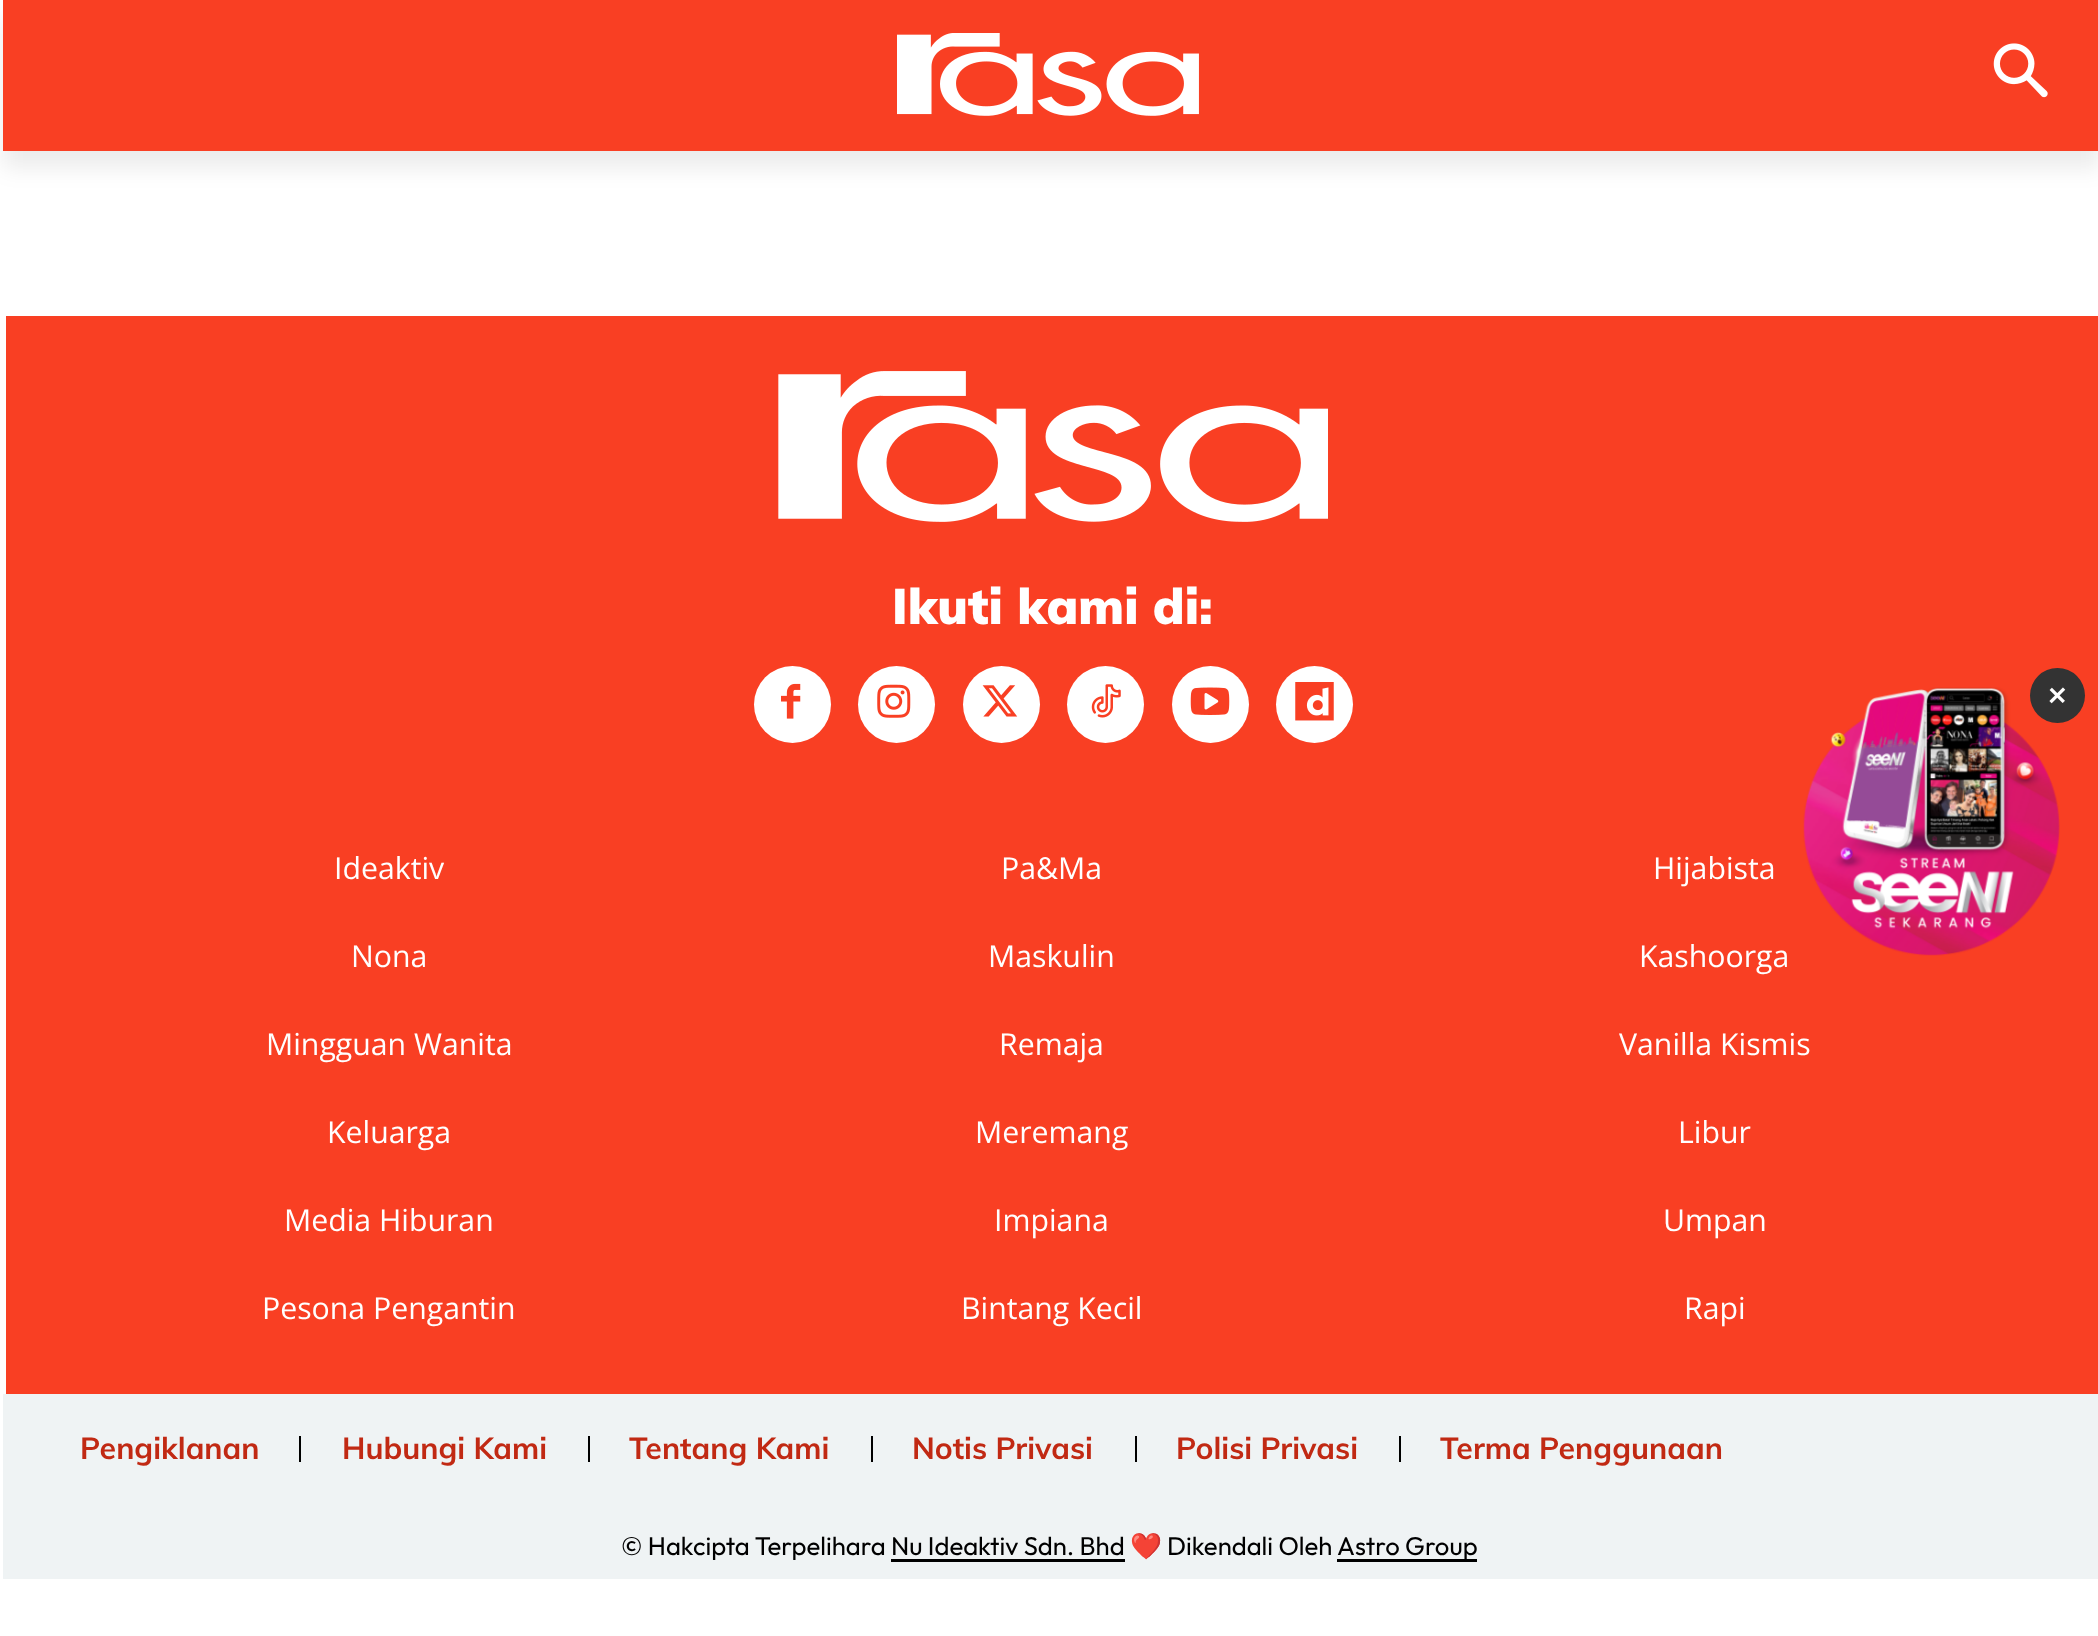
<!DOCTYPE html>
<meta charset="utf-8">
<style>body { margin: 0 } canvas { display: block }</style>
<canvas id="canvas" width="2098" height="1636"></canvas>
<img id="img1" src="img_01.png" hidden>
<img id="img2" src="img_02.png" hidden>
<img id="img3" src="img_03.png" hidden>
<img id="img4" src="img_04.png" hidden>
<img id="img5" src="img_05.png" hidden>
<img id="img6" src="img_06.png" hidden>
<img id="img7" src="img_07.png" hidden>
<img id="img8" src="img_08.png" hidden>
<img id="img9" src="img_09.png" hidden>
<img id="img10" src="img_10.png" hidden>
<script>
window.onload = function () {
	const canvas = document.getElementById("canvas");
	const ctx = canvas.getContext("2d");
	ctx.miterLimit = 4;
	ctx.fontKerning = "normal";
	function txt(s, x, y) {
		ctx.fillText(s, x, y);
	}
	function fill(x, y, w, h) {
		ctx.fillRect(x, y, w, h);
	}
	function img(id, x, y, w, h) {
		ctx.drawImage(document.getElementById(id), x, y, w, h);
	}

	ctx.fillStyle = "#FFFFFF";
	fill(0, 0, 2098, 1636);
	ctx.fillStyle = "#F93F23";
	fill(3, 0, 2095, 151);
	img("img1", 897, 33, 302, 83);
	img("img2", 1993, 43, 55, 55);
	ctx.save();
	ctx.beginPath();
	ctx.moveTo(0, 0);
	ctx.lineTo(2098, 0);
	ctx.lineTo(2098, 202);
	ctx.lineTo(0, 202);
	ctx.closePath();
	ctx.moveTo(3, 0);
	ctx.lineTo(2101, 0);
	ctx.lineTo(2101, 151);
	ctx.lineTo(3, 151);
	ctx.closePath();
	ctx.clip("evenodd");
	ctx.fillStyle = "rgba(0, 0, 0, 0.08)";
	ctx.filter = "blur(11px)";
	ctx.beginPath();
	ctx.rect(3, 17, 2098, 151);
	ctx.fill();
	ctx.filter = "none";
	ctx.restore();
	fill(6, 316, 2092, 1078);
	img("img3", 778, 371, 550, 151);
	ctx.fillStyle = "#FFFFFF";
	ctx.beginPath();
	ctx.arc(792.5, 704.5, 38.5, 0, Math.PI * 2);
	ctx.fill();
	img("img4", 781, 683, 20, 36);
	ctx.beginPath();
	ctx.arc(896.5, 704.5, 38.5, 0, Math.PI * 2);
	ctx.fill();
	img("img5", 877, 684, 34, 34);
	ctx.beginPath();
	ctx.arc(1001.5, 704.5, 38.5, 0, Math.PI * 2);
	ctx.fill();
	img("img6", 982, 685, 36, 32);
	ctx.beginPath();
	ctx.arc(1105.5, 704.5, 38.5, 0, Math.PI * 2);
	ctx.fill();
	img("img7", 1091, 684, 30, 34);
	ctx.beginPath();
	ctx.arc(1210.5, 704.5, 38.5, 0, Math.PI * 2);
	ctx.fill();
	img("img8", 1190, 687, 40, 28);
	ctx.beginPath();
	ctx.arc(1314.5, 704.5, 38.5, 0, Math.PI * 2);
	ctx.fill();
	img("img9", 1295, 682, 39, 39);
	ctx.fillStyle = "#EFF3F4";
	fill(3, 1394, 2095, 185);
	ctx.fillStyle = "#000000";
	fill(299, 1436, 2, 26);
	fill(588, 1436, 2, 26);
	fill(871, 1436, 2, 26);
	fill(1135, 1436, 2, 26);
	fill(1399, 1436, 2, 26);
	fill(891, 1559, 234, 3);
	fill(1337, 1559, 140, 3);
	img("img10", 1803, 687, 257, 269);
	ctx.fillStyle = "#333333";
	ctx.beginPath();
	ctx.arc(2057.5, 695.5, 27.5, 0, Math.PI * 2);
	ctx.fill();
	ctx.font = "900 49.5px Muli";
	ctx.fillStyle = "#FFFFFF";
	txt("Ikuti kami di:", 892, 624);
	ctx.font = "30.25px Open Sans";
	txt("Ideaktiv", 334, 879);
	txt("Nona", 351, 967);
	txt("Mingguan Wanita", 266, 1055);
	txt("Keluarga", 327, 1143);
	txt("Media Hiburan", 284, 1231);
	txt("Pesona Pengantin", 262, 1319);
	txt("Pa&Ma", 1001, 879);
	txt("Maskulin", 988, 967);
	txt("Remaja", 999, 1055);
	txt("Meremang", 975, 1143);
	txt("Impiana", 994, 1231);
	txt("Bintang Kecil", 961, 1319);
	txt("Hijabista", 1653, 879);
	txt("Kashoorga", 1639, 967);
	txt("Vanilla Kismis", 1619, 1055);
	txt("Libur", 1678, 1143);
	txt("Umpan", 1663, 1231);
	txt("Rapi", 1684, 1319);
	ctx.font = "bold 30.25px Muli";
	ctx.fillStyle = "#C12913";
	txt("Pengiklanan", 80, 1459);
	txt("Hubungi Kami", 342, 1459);
	txt("Tentang Kami", 629, 1459);
	txt("Notis Privasi", 912, 1459);
	txt("Polisi Privasi", 1176, 1459);
	txt("Terma Penggunaan", 1440, 1459);
	ctx.font = "25.7px Outfit";
	ctx.fillStyle = "#000000";
	txt("© Hakcipta Terpelihara Nu Ideaktiv Sdn. Bhd", 621, 1555);
	ctx.font = "25.7px Noto Color Emoji";
	txt("❤️", 1130, 1555);
	ctx.font = "25.7px Outfit";
	txt("Dikendali Oleh", 1167, 1555);
	txt("Astro Group", 1337, 1555);
	ctx.font = "38px Outfit";
	ctx.fillStyle = "#FFFFFF";
	txt("×", 2047, 708);
};
</script>
